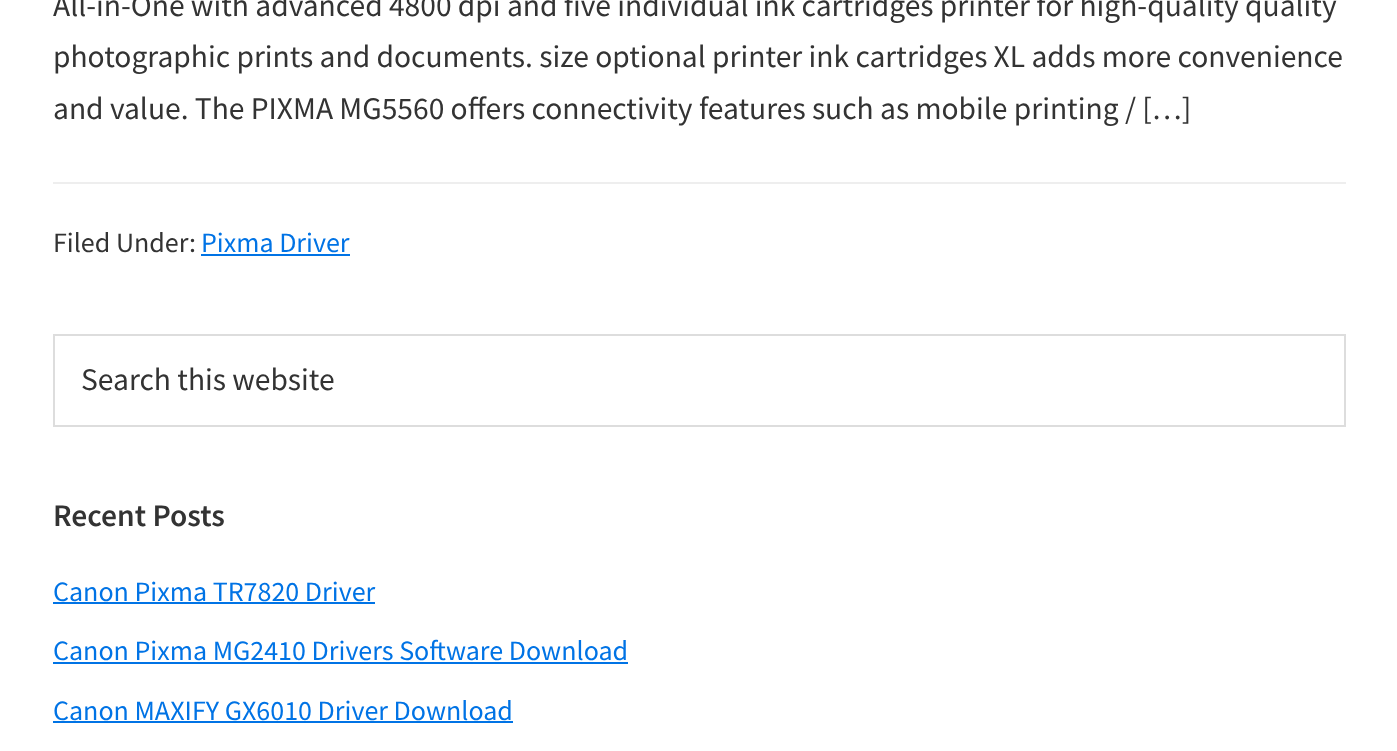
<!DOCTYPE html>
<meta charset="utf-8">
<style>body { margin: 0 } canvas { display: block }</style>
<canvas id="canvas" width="1397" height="751"></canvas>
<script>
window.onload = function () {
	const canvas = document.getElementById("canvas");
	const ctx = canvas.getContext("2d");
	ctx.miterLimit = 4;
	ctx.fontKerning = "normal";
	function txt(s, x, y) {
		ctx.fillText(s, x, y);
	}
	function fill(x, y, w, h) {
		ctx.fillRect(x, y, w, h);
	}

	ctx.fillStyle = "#FFFFFF";
	fill(0, 0, 1397, 751);
	ctx.fillStyle = "#EEEEEE";
	fill(53, 182, 1293, 2);
	ctx.fillStyle = "#0073E5";
	fill(201, 254, 149, 2);
	ctx.strokeStyle = "#DDDDDD";
	ctx.lineWidth = 2;
	ctx.strokeRect(54, 335, 1291, 91);
	fill(53, 602, 322, 2);
	fill(53, 662, 575, 2);
	fill(53, 721, 460, 2);
	ctx.font = "31.5px Source Sans Pro";
	ctx.fillStyle = "#333333";
	txt("All-in-One with advanced 4800 dpi and five individual ink cartridges printer for high-quality quality", 53, 16);
	txt("photographic prints and documents. size optional printer ink cartridges XL adds more convenience", 53, 67);
	txt("and value. The PIXMA MG5560 offers connectivity features such as mobile printing / […]", 53, 119);
	ctx.font = "28px Source Sans Pro";
	txt("Filed Under:", 53, 252);
	ctx.fillStyle = "#0073E5";
	txt("Pixma Driver", 201, 252);
	ctx.font = "31.5px Source Sans Pro";
	ctx.fillStyle = "#333333";
	txt("Search this website", 81, 390);
	ctx.font = "600 31.5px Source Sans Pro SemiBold";
	txt("Recent Posts", 53, 526);
	ctx.font = "28px Source Sans Pro";
	ctx.fillStyle = "#0073E5";
	txt("Canon Pixma TR7820 Driver", 53, 601);
	txt("Canon Pixma MG2410 Drivers Software Download", 53, 660);
	txt("Canon MAXIFY GX6010 Driver Download", 53, 720);
};
</script>
